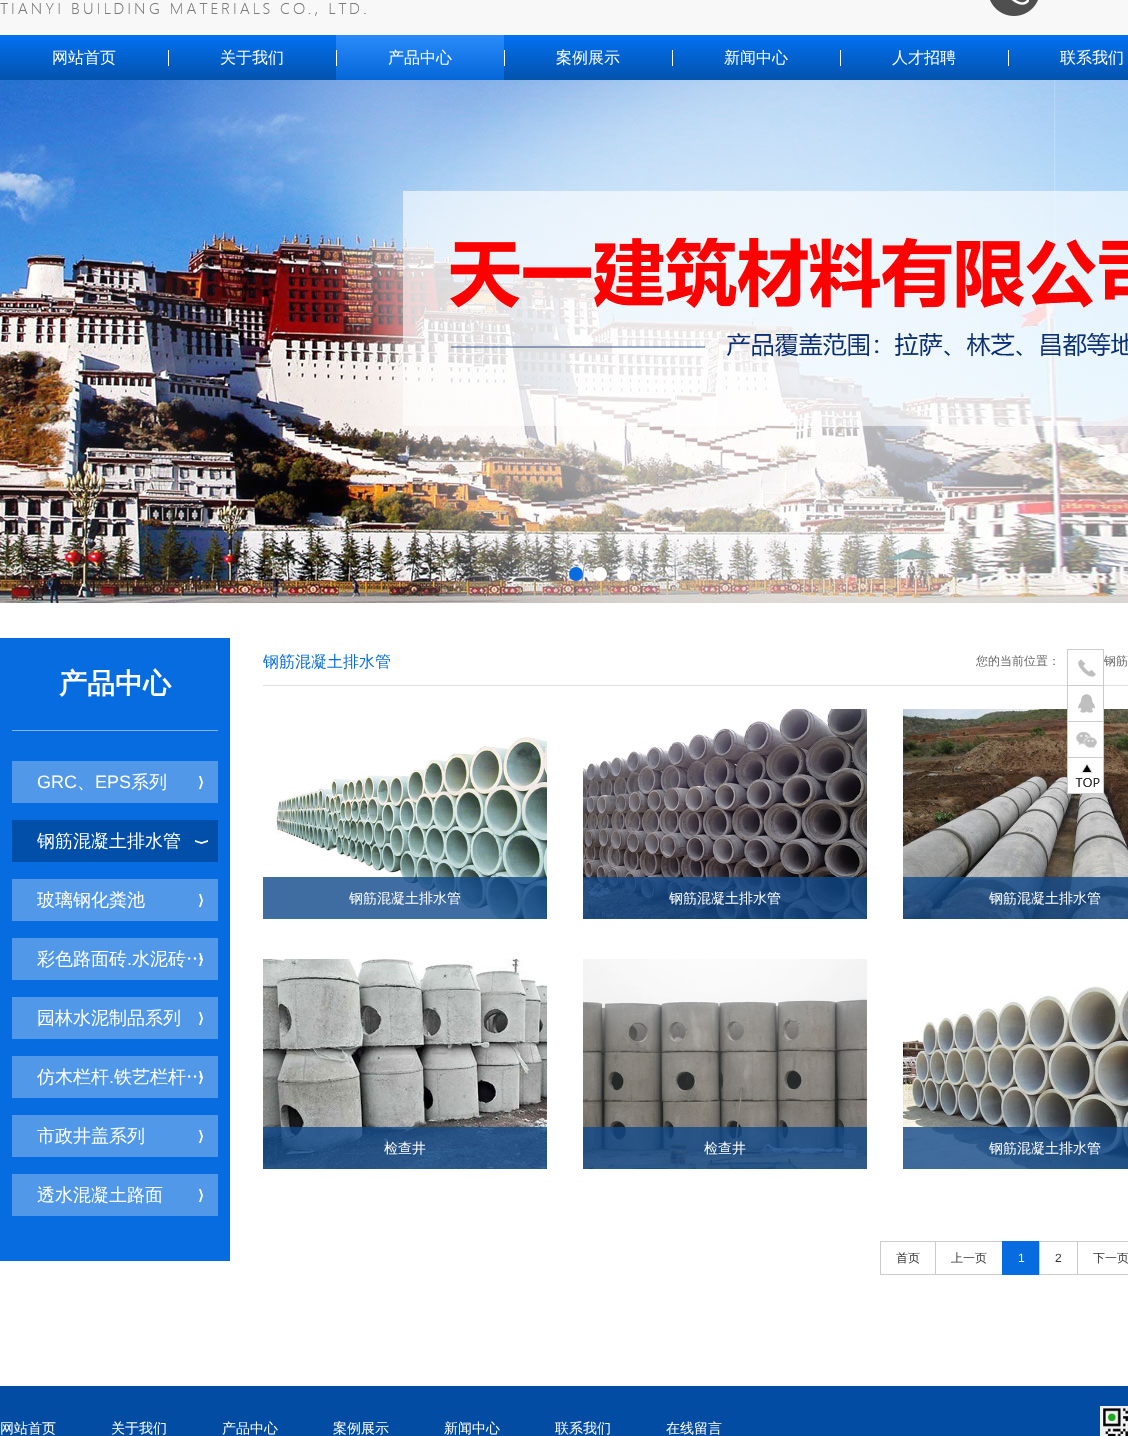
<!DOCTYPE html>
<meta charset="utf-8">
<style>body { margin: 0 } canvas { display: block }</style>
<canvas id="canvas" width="1128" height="1436"></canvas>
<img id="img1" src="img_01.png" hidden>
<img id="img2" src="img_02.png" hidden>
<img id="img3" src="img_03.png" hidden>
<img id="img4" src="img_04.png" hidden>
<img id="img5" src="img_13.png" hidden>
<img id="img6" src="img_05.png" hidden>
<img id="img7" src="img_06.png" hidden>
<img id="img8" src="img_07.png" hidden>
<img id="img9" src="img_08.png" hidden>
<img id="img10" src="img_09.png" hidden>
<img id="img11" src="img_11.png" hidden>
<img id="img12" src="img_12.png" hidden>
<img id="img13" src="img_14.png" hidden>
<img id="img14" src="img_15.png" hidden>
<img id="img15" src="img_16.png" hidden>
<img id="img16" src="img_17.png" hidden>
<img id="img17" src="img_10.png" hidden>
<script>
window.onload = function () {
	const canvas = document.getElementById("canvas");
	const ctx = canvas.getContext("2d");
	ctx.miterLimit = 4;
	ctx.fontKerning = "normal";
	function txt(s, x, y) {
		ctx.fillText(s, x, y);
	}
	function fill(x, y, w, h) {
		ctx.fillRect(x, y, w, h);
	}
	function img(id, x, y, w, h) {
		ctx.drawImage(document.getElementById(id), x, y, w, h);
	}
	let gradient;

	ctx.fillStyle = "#FFFFFF";
	fill(0, 0, 1128, 1436);
	ctx.fillStyle = "#F8F8F8";
	fill(0, 0, 1128, 35);
	img("img1", 0, 3, 366, 13);
	img("img2", 990, 0, 48, 16);
	gradient = ctx.createLinearGradient(600, 35, 600, 80);
	gradient.addColorStop(0, "#0271F1");
	gradient.addColorStop(1, "#0352AD");
	ctx.fillStyle = gradient;
	fill(0, 35, 1128, 45);
	ctx.fillStyle = "#FFFFFF";
	fill(168, 50, 1, 16);
	gradient = ctx.createLinearGradient(420, 35, 420, 80);
	gradient.addColorStop(0, "#2A8BFB");
	gradient.addColorStop(1, "#0566D7");
	ctx.fillStyle = gradient;
	fill(336, 35, 168, 45);
	ctx.fillStyle = "#FFFFFF";
	fill(336, 50, 1, 16);
	fill(504, 50, 1, 16);
	fill(672, 50, 1, 16);
	fill(840, 50, 1, 16);
	fill(1008, 50, 1, 16);
	img("img3", 0, 80, 1128, 523);
	ctx.fillStyle = "#076CE0";
	ctx.beginPath();
	ctx.arc(576, 574, 7, 0, Math.PI * 2);
	ctx.fill();
	ctx.fillStyle = "#FFFFFF";
	ctx.beginPath();
	ctx.arc(600, 574, 7, 0, Math.PI * 2);
	ctx.fill();
	ctx.beginPath();
	ctx.arc(624, 574, 7, 0, Math.PI * 2);
	ctx.fill();
	img("img4", 1078, 659, 18, 18);
	img("img5", 903, 709, 225, 210);
	fill(1068, 709, 35, 12);
	img("img6", 1078, 694, 17, 19);
	fill(1068, 722, 35, 35);
	img("img7", 1076, 732, 21, 16);
	fill(1068, 758, 35, 35);
	img("img8", 1075, 764, 25, 23);
	ctx.fillStyle = "#076CE0";
	fill(0, 638, 230, 623);
	ctx.fillStyle = "#83B6F0";
	fill(12, 730, 206, 1);
	ctx.fillStyle = "#5298E9";
	fill(12, 761, 206, 42);
	img("img9", 199, 776, 4, 13);
	ctx.fillStyle = "#014FA8";
	fill(12, 820, 206, 42);
	img("img10", 195, 840, 13, 4);
	ctx.fillStyle = "#5298E9";
	fill(12, 879, 206, 42);
	img("img9", 199, 894, 4, 13);
	fill(12, 938, 206, 42);
	fill(12, 997, 206, 42);
	img("img9", 199, 1012, 4, 13);
	fill(12, 1056, 206, 42);
	fill(12, 1115, 206, 42);
	img("img9", 199, 1130, 4, 13);
	fill(12, 1174, 206, 42);
	img("img9", 199, 1189, 4, 13);
	ctx.fillStyle = "#E0E0E0";
	fill(263, 685, 865, 1);
	img("img11", 274, 736, 273, 183);
	ctx.fillStyle = "rgba(16, 72, 137, 0.8)";
	fill(263, 877, 284, 42);
	img("img12", 583, 709, 284, 210);
	fill(583, 877, 284, 42);
	fill(903, 877, 225, 42);
	img("img13", 263, 959, 284, 210);
	fill(263, 1127, 284, 42);
	img("img14", 583, 959, 284, 210);
	fill(583, 1127, 284, 42);
	img("img15", 903, 985, 225, 184);
	fill(903, 1127, 225, 42);
	ctx.strokeStyle = "#CCCCCC";
	ctx.strokeRect(880.5, 1241.5, 55, 33);
	ctx.strokeRect(935.5, 1241.5, 67, 33);
	ctx.fillStyle = "#076CE0";
	fill(1002, 1241, 37, 34);
	ctx.strokeRect(1039.5, 1241.5, 38, 33);
	ctx.strokeRect(1077.5, 1241.5, 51, 33);
	ctx.fillStyle = "#024DA3";
	fill(0, 1386, 1128, 50);
	img("img16", 1100, 1406, 28, 30);
	ctx.font = "500 16px WenQuanYi Zen Hei";
	ctx.fillStyle = "#FFFFFF";
	txt("网站首页", 52, 63);
	txt("关于我们", 220, 63);
	txt("产品中心", 388, 63);
	txt("案例展示", 556, 63);
	txt("新闻中心", 724, 63);
	txt("人才招聘", 892, 63);
	txt("联系我们", 1060, 63);
	ctx.font = "bold 28px WenQuanYi Zen Hei";
	txt("产品中心", 59, 693);
	ctx.font = "18px Liberation Sans";
	txt("GRC", 37, 788);
	ctx.font = "500 18px WenQuanYi Zen Hei";
	txt("、", 77, 788);
	ctx.font = "18px Liberation Sans";
	txt("EPS", 95, 788);
	ctx.font = "500 18px WenQuanYi Zen Hei";
	txt("系列", 131, 788);
	txt("钢筋混凝土排水管", 37, 847);
	txt("玻璃钢化粪池", 37, 906);
	txt("彩色路面砖", 37, 965);
	txt("水泥砖…", 132, 965);
	ctx.font = "18px Liberation Sans";
	txt(".", 127, 965);
	img("img17", 199, 953, 4, 13);
	ctx.font = "500 18px WenQuanYi Zen Hei";
	txt("园林水泥制品系列", 37, 1024);
	txt("仿木栏杆", 37, 1083);
	txt("铁艺栏杆…", 114, 1083);
	ctx.font = "18px Liberation Sans";
	txt(".", 109, 1083);
	img("img17", 199, 1071, 4, 13);
	ctx.font = "500 18px WenQuanYi Zen Hei";
	txt("市政井盖系列", 37, 1142);
	txt("透水混凝土路面", 37, 1201);
	ctx.font = "500 16px WenQuanYi Zen Hei";
	ctx.fillStyle = "#076CE0";
	txt("钢筋混凝土排水管", 263, 667);
	ctx.font = "500 12px WenQuanYi Zen Hei";
	ctx.fillStyle = "#666666";
	txt("您的当前位置：", 976, 665);
	txt("钢筋", 1104, 665);
	ctx.strokeRect(1067.5, 649.5, 36, 36);
	ctx.strokeRect(1067.5, 685.5, 36, 36);
	ctx.strokeRect(1067.5, 721.5, 36, 36);
	ctx.strokeRect(1067.5, 757.5, 36, 36);
	ctx.font = "500 14px WenQuanYi Zen Hei";
	ctx.fillStyle = "#FFFFFF";
	txt("钢筋混凝土排水管", 349, 903);
	txt("钢筋混凝土排水管", 669, 903);
	txt("钢筋混凝土排水管", 989, 903);
	txt("检查井", 384, 1153);
	txt("检查井", 704, 1153);
	txt("钢筋混凝土排水管", 989, 1153);
	ctx.font = "500 12px WenQuanYi Zen Hei";
	ctx.fillStyle = "#333333";
	txt("首页", 896, 1262);
	txt("上一页", 951, 1262);
	ctx.font = "12px Liberation Sans";
	ctx.fillStyle = "#FFFFFF";
	txt("1", 1018, 1262);
	ctx.fillStyle = "#333333";
	txt("2", 1055, 1262);
	ctx.font = "500 12px WenQuanYi Zen Hei";
	txt("下一页", 1093, 1262);
	ctx.font = "500 14px WenQuanYi Zen Hei";
	ctx.fillStyle = "#FFFFFF";
	txt("网站首页", 0, 1433);
	txt("关于我们", 111, 1433);
	txt("产品中心", 222, 1433);
	txt("案例展示", 333, 1433);
	txt("新闻中心", 444, 1433);
	txt("联系我们", 555, 1433);
	txt("在线留言", 666, 1433);
};
</script>
